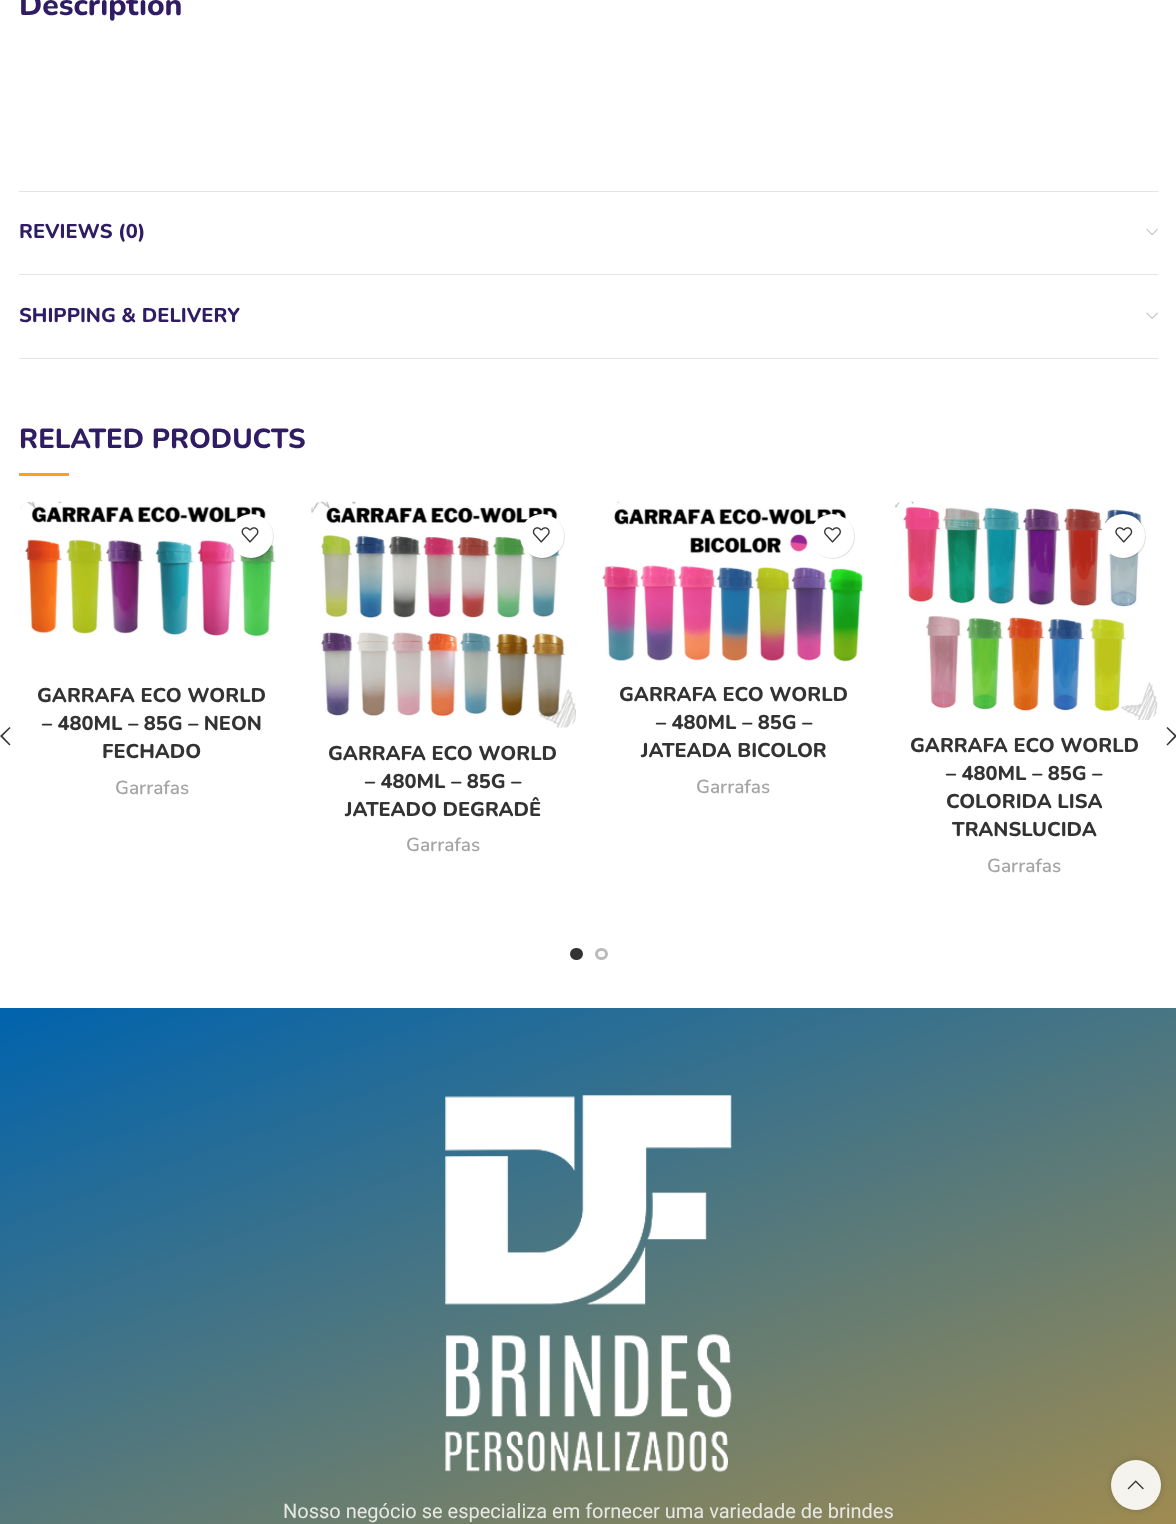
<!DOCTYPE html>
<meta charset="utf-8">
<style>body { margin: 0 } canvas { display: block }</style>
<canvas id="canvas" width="1176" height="1524"></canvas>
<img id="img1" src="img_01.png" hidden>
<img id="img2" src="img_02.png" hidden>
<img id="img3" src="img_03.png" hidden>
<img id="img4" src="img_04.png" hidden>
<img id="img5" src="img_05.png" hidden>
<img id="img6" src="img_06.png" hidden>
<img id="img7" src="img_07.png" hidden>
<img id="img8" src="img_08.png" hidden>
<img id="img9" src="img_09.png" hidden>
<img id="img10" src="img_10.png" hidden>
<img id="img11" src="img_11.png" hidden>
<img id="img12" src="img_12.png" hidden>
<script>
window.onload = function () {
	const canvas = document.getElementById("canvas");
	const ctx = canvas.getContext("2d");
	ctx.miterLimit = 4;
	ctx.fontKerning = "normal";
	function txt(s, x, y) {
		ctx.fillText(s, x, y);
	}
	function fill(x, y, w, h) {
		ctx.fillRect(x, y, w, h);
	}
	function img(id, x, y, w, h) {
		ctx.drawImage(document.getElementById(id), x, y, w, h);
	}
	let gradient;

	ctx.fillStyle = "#FFFFFF";
	fill(0, 0, 1176, 1524);
	ctx.fillStyle = "#E4E4E4";
	fill(19, 191, 1139, 1);
	fill(19, 274, 1139, 1);
	img("img1", 1146, 229, 12, 7);
	fill(19, 358, 1139, 1);
	img("img2", 1146, 312, 12, 7);
	ctx.fillStyle = "#FAA21B";
	fill(19, 473, 50, 3);
	img("img3", 19, 501, 257, 136);
	ctx.fillStyle = "rgba(0, 0, 0, 0.1)";
	ctx.filter = "blur(0.5px)";
	ctx.beginPath();
	ctx.roundRect(230, 515, 44, 44, 22);
	ctx.fill();
	ctx.filter = "none";
	ctx.fillStyle = "#FFFFFF";
	ctx.beginPath();
	ctx.arc(251, 536, 22, 0, Math.PI * 2);
	ctx.fill();
	img("img4", 241, 527, 18, 16);
	img("img5", 311, 501, 265, 227);
	ctx.fillStyle = "rgba(0, 0, 0, 0.1)";
	ctx.filter = "blur(0.5px)";
	ctx.beginPath();
	ctx.roundRect(521, 515, 44, 44, 22);
	ctx.fill();
	ctx.filter = "none";
	ctx.fillStyle = "#FFFFFF";
	ctx.beginPath();
	ctx.arc(542, 536, 22, 0, Math.PI * 2);
	ctx.fill();
	img("img6", 532, 527, 18, 16);
	img("img7", 602, 501, 262, 161);
	ctx.fillStyle = "rgba(0, 0, 0, 0.1)";
	ctx.filter = "blur(0.5px)";
	ctx.beginPath();
	ctx.roundRect(811, 515, 44, 44, 22);
	ctx.fill();
	ctx.filter = "none";
	ctx.fillStyle = "#FFFFFF";
	ctx.beginPath();
	ctx.arc(832, 536, 22, 0, Math.PI * 2);
	ctx.fill();
	img("img8", 824, 527, 17, 16);
	img("img9", 895, 501, 263, 219);
	ctx.fillStyle = "rgba(0, 0, 0, 0.1)";
	ctx.filter = "blur(0.5px)";
	ctx.beginPath();
	ctx.roundRect(1103, 515, 43, 44, 21.5);
	ctx.fill();
	ctx.filter = "none";
	ctx.fillStyle = "#FFFFFF";
	ctx.beginPath();
	ctx.arc(1123, 536, 22, 0, Math.PI * 2);
	ctx.fill();
	img("img10", 1115, 527, 18, 16);
	ctx.fillStyle = "#333333";
	ctx.beginPath();
	ctx.moveTo(10.5, 728);
	ctx.lineTo(9.5, 727);
	ctx.lineTo(0, 736);
	ctx.lineTo(9.5, 745.5);
	ctx.lineTo(10.5, 744.5);
	ctx.lineTo(2.5, 736);
	ctx.closePath();
	ctx.fill();
	ctx.beginPath();
	ctx.moveTo(1166.5, 728);
	ctx.lineTo(1174.5, 736);
	ctx.lineTo(1166.5, 744.5);
	ctx.lineTo(1167.5, 745.5);
	ctx.lineTo(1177, 736);
	ctx.lineTo(1167.5, 727);
	ctx.closePath();
	ctx.fill();
	ctx.beginPath();
	ctx.roundRect(571.5, 949.5, 10, 9, 4.5);
	ctx.fill();
	ctx.strokeStyle = "#333333";
	ctx.lineWidth = 3;
	ctx.stroke();
	ctx.beginPath();
	ctx.roundRect(596.5, 949.5, 10, 9, 4.5);
	ctx.strokeStyle = "#BBBBBB";
	ctx.stroke();
	gradient = ctx.createLinearGradient(349, 880, 827, 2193);
	gradient.addColorStop(0, "#0063AD");
	gradient.addColorStop(1, "#FAA21B");
	ctx.fillStyle = gradient;
	fill(0, 1008, 1176, 516);
	img("img11", 445, 1095, 287, 377);
	ctx.save();
	ctx.beginPath();
	ctx.moveTo(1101, 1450);
	ctx.lineTo(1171, 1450);
	ctx.lineTo(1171, 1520);
	ctx.lineTo(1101, 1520);
	ctx.closePath();
	ctx.moveTo(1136, 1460);
	ctx.bezierCurveTo(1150, 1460, 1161, 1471, 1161, 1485);
	ctx.bezierCurveTo(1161, 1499, 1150, 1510, 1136, 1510);
	ctx.bezierCurveTo(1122, 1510, 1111, 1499, 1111, 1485);
	ctx.bezierCurveTo(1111, 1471, 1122, 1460, 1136, 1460);
	ctx.closePath();
	ctx.clip("evenodd");
	ctx.fillStyle = "rgba(0, 0, 0, 0.17)";
	ctx.filter = "blur(3px)";
	ctx.beginPath();
	ctx.roundRect(1111, 1460, 50, 50, 25);
	ctx.fill();
	ctx.filter = "none";
	ctx.restore();
	ctx.fillStyle = "rgba(255, 255, 255, 0.9)";
	ctx.beginPath();
	ctx.arc(1136, 1485, 25, 0, Math.PI * 2);
	ctx.fill();
	img("img12", 1127, 1480, 17, 10);
	ctx.font = "800 30px Nunito";
	ctx.fillStyle = "#2F1C64";
	txt("Description", 19, 15);
	ctx.font = "800 20px Nunito";
	txt("REVIEWS (0)", 19, 238);
	txt("SHIPPING & DELIVERY", 19, 322);
	ctx.font = "800 27.5px Nunito";
	txt("RELATED PRODUCTS", 19, 448);
	ctx.font = "800 20px Nunito";
	ctx.fillStyle = "#333333";
	txt("GARRAFA ECO WORLD", 37, 702);
	txt("– 480ML – 85G – NEON", 42, 730);
	txt("FECHADO", 102, 758);
	ctx.font = "600 19px Nunito";
	ctx.fillStyle = "#A5A5A5";
	txt("Garrafas", 115, 794);
	ctx.font = "800 20px Nunito";
	ctx.fillStyle = "#333333";
	txt("GARRAFA ECO WORLD", 328, 760);
	txt("– 480ML – 85G –", 365, 788);
	txt("JATEADO DEGRADÊ", 345, 816);
	ctx.font = "600 19px Nunito";
	ctx.fillStyle = "#A5A5A5";
	txt("Garrafas", 406, 851);
	ctx.font = "800 20px Nunito";
	ctx.fillStyle = "#333333";
	txt("GARRAFA ECO WORLD", 619, 701);
	txt("– 480ML – 85G –", 656, 729);
	txt("JATEADA BICOLOR", 641, 757);
	ctx.font = "600 19px Nunito";
	ctx.fillStyle = "#A5A5A5";
	txt("Garrafas", 696, 793);
	ctx.font = "800 20px Nunito";
	ctx.fillStyle = "#333333";
	txt("GARRAFA ECO WORLD", 910, 752);
	txt("– 480ML – 85G –", 946, 780);
	txt("COLORIDA LISA", 946, 808);
	txt("TRANSLUCIDA", 952, 836);
	ctx.font = "600 19px Nunito";
	ctx.fillStyle = "#A5A5A5";
	txt("Garrafas", 987, 872);
	ctx.font = "20px Roboto";
	ctx.fillStyle = "#E7E8E4";
	txt("Nosso negócio se especializa em fornecer uma variedade de brindes", 283, 1518);
};
</script>
